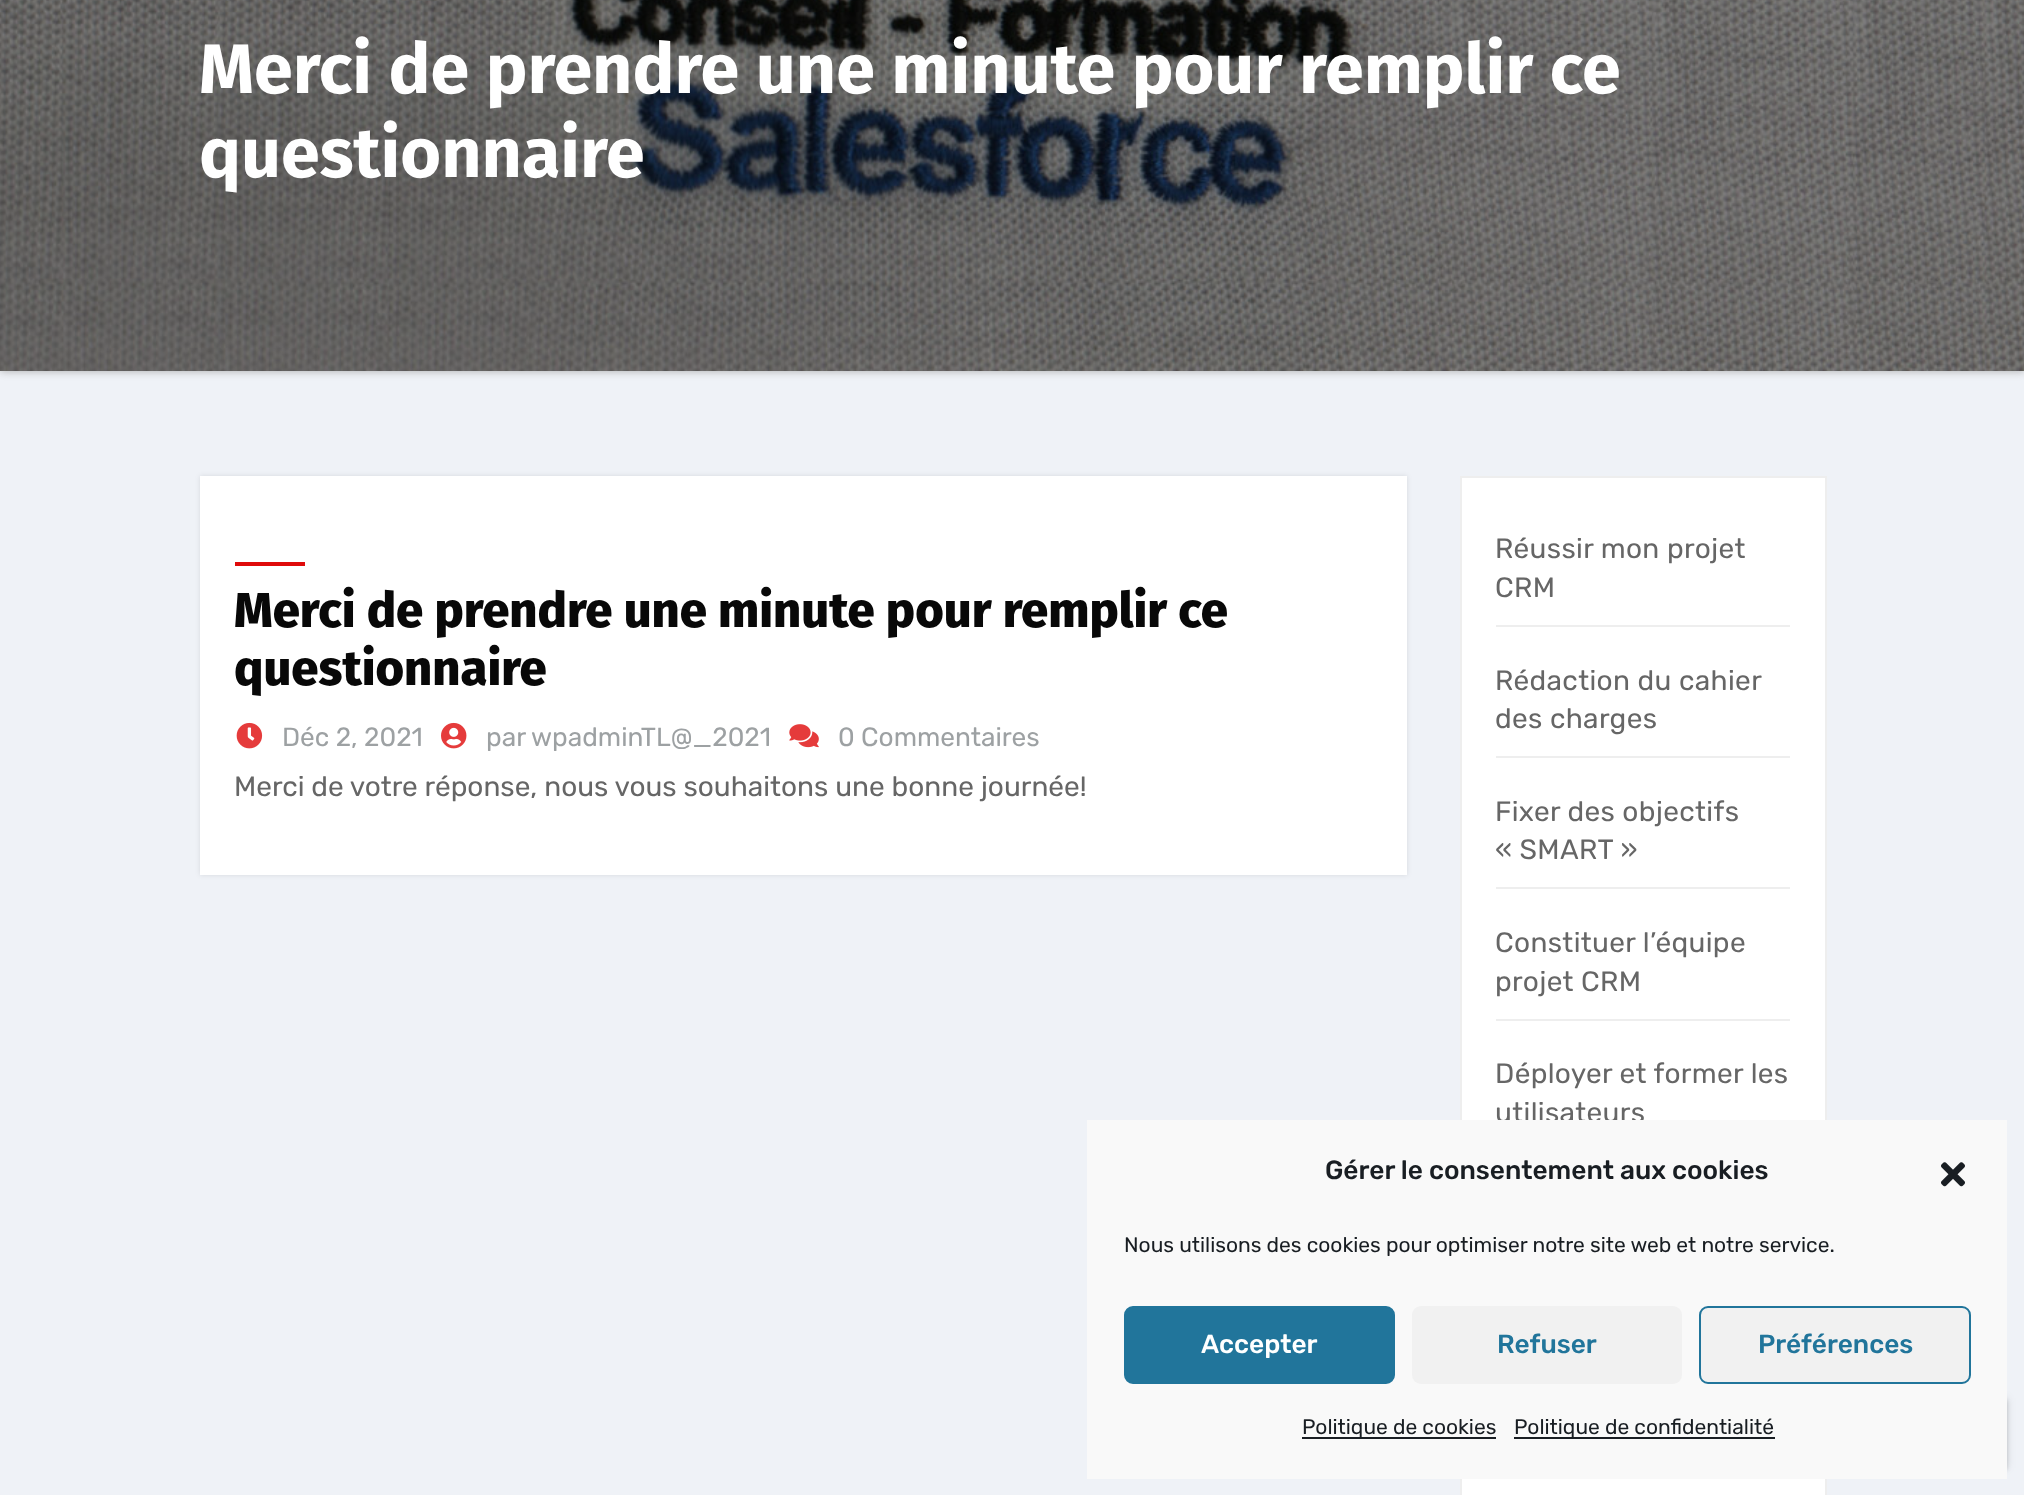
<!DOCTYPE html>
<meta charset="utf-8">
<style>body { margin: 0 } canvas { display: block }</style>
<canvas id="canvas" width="2024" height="1495"></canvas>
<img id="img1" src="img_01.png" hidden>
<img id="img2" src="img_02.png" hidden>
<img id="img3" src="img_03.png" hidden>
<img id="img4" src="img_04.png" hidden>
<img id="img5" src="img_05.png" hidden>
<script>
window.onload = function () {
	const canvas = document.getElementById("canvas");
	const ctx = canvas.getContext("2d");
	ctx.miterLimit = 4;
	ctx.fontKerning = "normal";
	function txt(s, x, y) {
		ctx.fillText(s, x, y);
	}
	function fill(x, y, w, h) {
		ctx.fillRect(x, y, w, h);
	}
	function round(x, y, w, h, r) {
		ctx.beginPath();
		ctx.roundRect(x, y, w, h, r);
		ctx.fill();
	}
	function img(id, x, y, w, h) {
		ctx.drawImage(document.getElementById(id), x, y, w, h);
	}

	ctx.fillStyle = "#EFF2F7";
	fill(0, 0, 2024, 1495);
	ctx.fillStyle = "#AAAAAA";
	ctx.filter = "blur(4.5px)";
	ctx.beginPath();
	ctx.rect(0, -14, 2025, 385);
	ctx.fill();
	ctx.filter = "none";
	img("img1", 0, 0, 2024, 371);
	ctx.fillStyle = "rgba(0, 0, 0, 0.1)";
	ctx.filter = "blur(2.5px)";
	ctx.beginPath();
	ctx.rect(200, 476, 1207, 399);
	ctx.fill();
	ctx.filter = "none";
	ctx.fillStyle = "#FFFFFF";
	fill(200, 476, 1207, 399);
	ctx.fillStyle = "#DF0A0A";
	fill(235, 562, 70, 4);
	img("img2", 236, 722, 27, 27);
	img("img3", 441, 722, 26, 27);
	img("img4", 789, 724, 30, 24);
	ctx.fillStyle = "#FFFFFF";
	fill(1462, 478, 363, 642);
	ctx.strokeStyle = "#EEEEEE";
	ctx.lineWidth = 2;
	ctx.strokeRect(1461, 477, 365, 784);
	ctx.fillStyle = "#EEEEEE";
	fill(1496, 625, 294, 2);
	fill(1496, 756, 294, 2);
	fill(1496, 887, 294, 2);
	fill(1496, 1019, 294, 2);
	ctx.fillStyle = "#FFFFFF";
	fill(1462, 1479, 363, 16);
	ctx.strokeRect(1461, 1315, 365, 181);
	ctx.fillStyle = "rgba(0, 0, 0, 0.12)";
	ctx.filter = "blur(4.5px)";
	ctx.beginPath();
	ctx.rect(1937, 1398, 70, 70);
	ctx.fill();
	ctx.filter = "none";
	ctx.fillStyle = "rgba(0, 0, 0, 0.14)";
	ctx.filter = "blur(2px)";
	ctx.beginPath();
	ctx.rect(1937, 1400, 70, 70);
	ctx.fill();
	ctx.filter = "none";
	ctx.font = "bold 70px Fira Sans";
	ctx.fillStyle = "#FFFFFF";
	txt("Merci de prendre une minute pour remplir ce", 199, 93);
	txt("questionnaire", 199, 177);
	ctx.font = "800 49px Fira Sans";
	ctx.fillStyle = "#080808";
	txt("Merci de prendre une minute pour remplir ce", 234, 627);
	txt("questionnaire", 234, 685);
	ctx.font = "26.25px Rubik";
	ctx.fillStyle = "#9DA1A3";
	txt("Déc 2, 2021", 282, 746);
	txt("par", 486, 746);
	txt("wpadminTL@_2021", 531, 746);
	txt("0 Commentaires", 838, 746);
	ctx.font = "28px Rubik";
	ctx.fillStyle = "#666666";
	txt("Merci de votre réponse, nous vous souhaitons une bonne journée!", 234, 796);
	ctx.letterSpacing = "0.35px";
	txt("Réussir mon projet", 1495, 558);
	txt("CRM", 1495, 597);
	txt("Rédaction du cahier", 1495, 690);
	txt("des charges", 1495, 728);
	txt("Fixer des objectifs", 1495, 821);
	txt("« SMART »", 1495, 859);
	txt("Constituer l’équipe", 1495, 952);
	txt("projet CRM", 1495, 991);
	txt("Déployer et former les", 1495, 1083);
	txt("utilisateurs", 1495, 1122);
	ctx.fillStyle = "#F9F9F9";
	fill(1087, 1120, 920, 359);
	ctx.letterSpacing = "0px";
	ctx.font = "500 26.25px Rubik";
	ctx.fillStyle = "#191E23";
	txt("Gérer le consentement aux cookies", 1325, 1179);
	img("img5", 1941, 1162, 24, 25);
	ctx.font = "21px Rubik";
	txt("Nous utilisons des cookies pour optimiser notre site web et notre service.", 1124, 1252);
	ctx.fillStyle = "#21759B";
	ctx.beginPath();
	ctx.roundRect(1125, 1307, 269, 76, 8);
	ctx.fill();
	ctx.strokeStyle = "#21759B";
	ctx.stroke();
	ctx.font = "500 26.25px Rubik";
	ctx.fillStyle = "#FFFFFF";
	txt("Accepter", 1201, 1353);
	ctx.fillStyle = "#F1F1F1";
	round(1412, 1306, 270, 78, 9);
	ctx.fillStyle = "#21759B";
	txt("Refuser", 1497, 1353);
	ctx.fillStyle = "#F1F1F1";
	ctx.beginPath();
	ctx.roundRect(1700, 1307, 270, 76, 8);
	ctx.fill();
	ctx.stroke();
	ctx.fillStyle = "#21759B";
	txt("Préférences", 1758, 1353);
	ctx.fillStyle = "#191E23";
	fill(1302, 1437, 194, 2);
	ctx.font = "21px Rubik";
	txt("Politique de cookies", 1302, 1434);
	fill(1514, 1437, 261, 2);
	txt("Politique de confidentialité", 1514, 1434);
};
</script>
